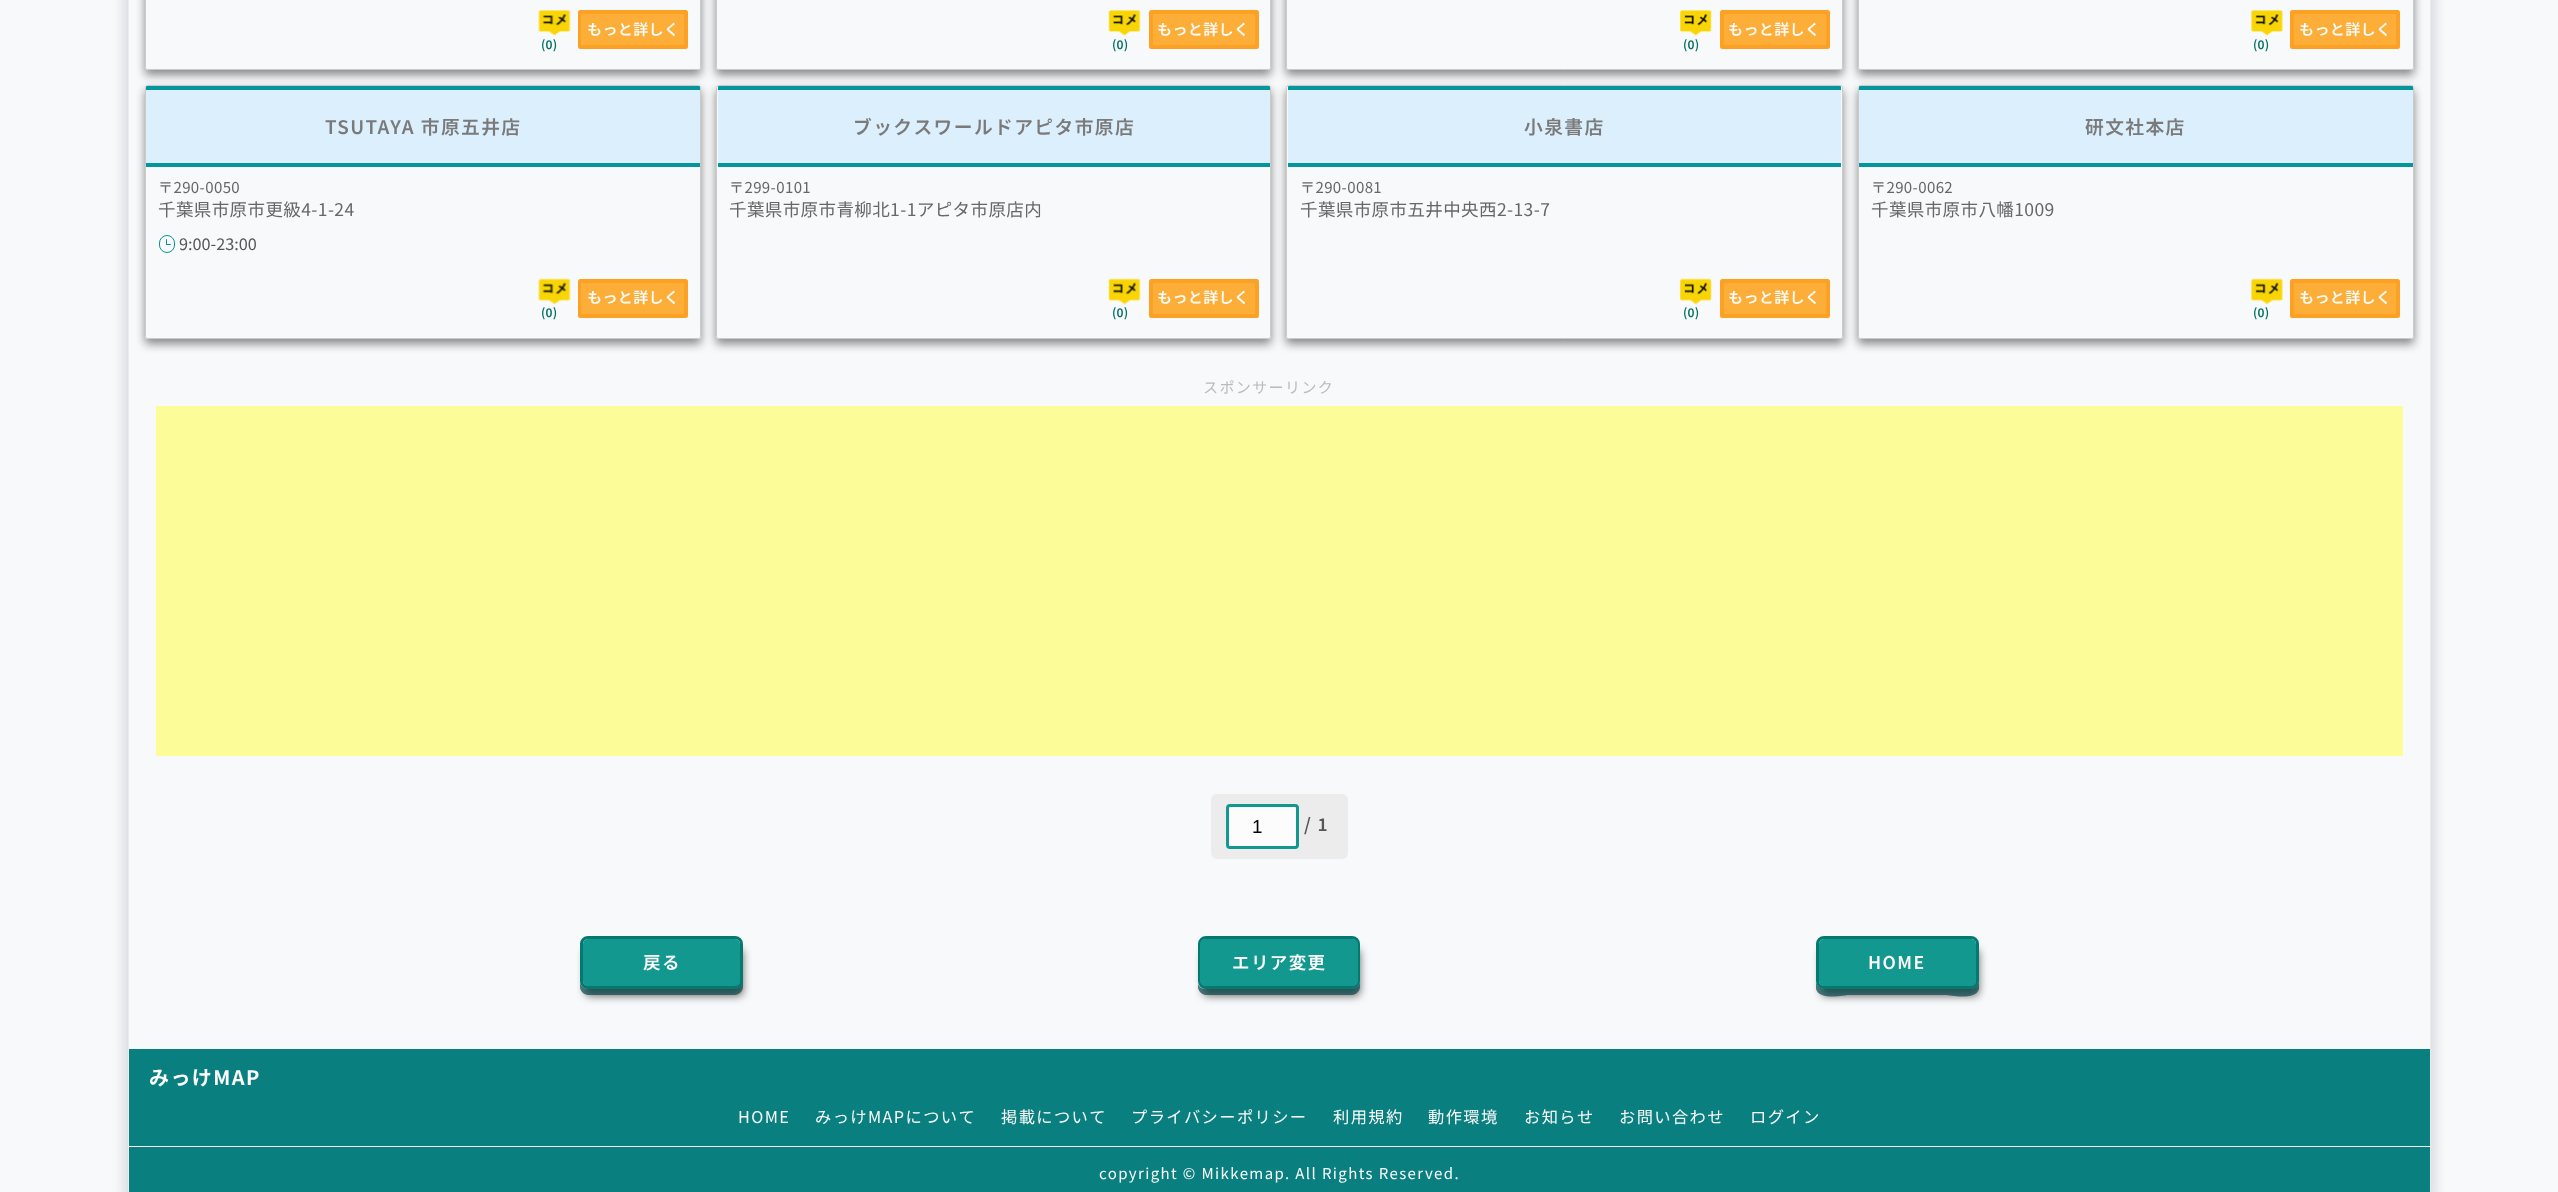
<!DOCTYPE html>
<meta charset="utf-8">
<style>body { margin: 0 } canvas { display: block }</style>
<canvas id="canvas" width="2558" height="1192"></canvas>
<img id="img1" src="img_01.png" hidden>
<img id="img2" src="img_02.png" hidden>
<img id="img3" src="img_03.png" hidden>
<img id="img4" src="img_04.png" hidden>
<img id="img5" src="img_05.png" hidden>
<img id="img6" src="img_06.png" hidden>
<img id="img7" src="img_07.png" hidden>
<img id="img8" src="img_08.png" hidden>
<script>
window.onload = function () {
	const canvas = document.getElementById("canvas");
	const ctx = canvas.getContext("2d");
	ctx.miterLimit = 4;
	ctx.fontKerning = "normal";
	function txt(s, x, y) {
		ctx.fillText(s, x, y);
	}
	function fill(x, y, w, h) {
		ctx.fillRect(x, y, w, h);
	}
	function round(x, y, w, h, r) {
		ctx.beginPath();
		ctx.roundRect(x, y, w, h, r);
		ctx.fill();
	}
	function img(id, x, y, w, h) {
		ctx.drawImage(document.getElementById(id), x, y, w, h);
	}

	ctx.fillStyle = "#F8F9FA";
	fill(0, 0, 2558, 1192);
	ctx.save();
	ctx.beginPath();
	ctx.moveTo(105, 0);
	ctx.lineTo(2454, 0);
	ctx.lineTo(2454, 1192);
	ctx.lineTo(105, 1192);
	ctx.closePath();
	ctx.moveTo(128, -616);
	ctx.lineTo(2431, -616);
	ctx.lineTo(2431, 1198);
	ctx.lineTo(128, 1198);
	ctx.closePath();
	ctx.clip("evenodd");
	ctx.fillStyle = "rgba(134, 146, 160, 0.3)";
	ctx.filter = "blur(6px)";
	ctx.beginPath();
	ctx.rect(124, -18, 2311, 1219);
	ctx.fill();
	ctx.filter = "none";
	ctx.restore();
	ctx.fillStyle = "#ECECEC";
	fill(2430, 0, 1, 1192);
	fill(128, 0, 1, 1192);
	ctx.save();
	ctx.beginPath();
	ctx.moveTo(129, 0);
	ctx.lineTo(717, 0);
	ctx.lineTo(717, 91);
	ctx.lineTo(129, 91);
	ctx.closePath();
	ctx.moveTo(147.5, -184);
	ctx.lineTo(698.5, -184);
	ctx.bezierCurveTo(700, -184, 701, -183, 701, -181.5);
	ctx.lineTo(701, 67.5);
	ctx.bezierCurveTo(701, 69, 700, 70, 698.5, 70);
	ctx.lineTo(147.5, 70);
	ctx.bezierCurveTo(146, 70, 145, 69, 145, 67.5);
	ctx.lineTo(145, -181.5);
	ctx.bezierCurveTo(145, -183, 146, -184, 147.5, -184);
	ctx.closePath();
	ctx.clip("evenodd");
	ctx.fillStyle = "#888888";
	ctx.filter = "blur(5px)";
	ctx.beginPath();
	ctx.roundRect(145, -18, 556, 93, 2.5);
	ctx.fill();
	ctx.filter = "none";
	ctx.restore();
	ctx.beginPath();
	ctx.roundRect(145.5, -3.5, 555, 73, 2);
	ctx.strokeStyle = "#CACACA";
	ctx.stroke();
	ctx.beginPath();
	ctx.roundRect(580, 12, 106, 35, 0.5);
	ctx.strokeStyle = "#FCA123";
	ctx.lineWidth = 4;
	ctx.stroke();
	ctx.fillStyle = "#FCAE39";
	fill(581, 14, 103, 31);
	img("img1", 538, 10, 33, 26);
	ctx.save();
	ctx.beginPath();
	ctx.moveTo(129, 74);
	ctx.lineTo(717, 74);
	ctx.lineTo(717, 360);
	ctx.lineTo(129, 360);
	ctx.closePath();
	ctx.moveTo(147.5, 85);
	ctx.lineTo(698.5, 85);
	ctx.bezierCurveTo(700, 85, 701, 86, 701, 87.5);
	ctx.lineTo(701, 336.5);
	ctx.bezierCurveTo(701, 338, 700, 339, 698.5, 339);
	ctx.lineTo(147.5, 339);
	ctx.bezierCurveTo(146, 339, 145, 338, 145, 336.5);
	ctx.lineTo(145, 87.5);
	ctx.bezierCurveTo(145, 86, 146, 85, 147.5, 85);
	ctx.closePath();
	ctx.clip("evenodd");
	ctx.fillStyle = "#888888";
	ctx.filter = "blur(5px)";
	ctx.beginPath();
	ctx.roundRect(145, 90, 556, 254, 2.5);
	ctx.fill();
	ctx.filter = "none";
	ctx.restore();
	ctx.beginPath();
	ctx.roundRect(145.5, 85.5, 555, 253, 2);
	ctx.strokeStyle = "#CACACA";
	ctx.lineWidth = 1;
	ctx.stroke();
	ctx.save();
	ctx.beginPath();
	ctx.moveTo(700, 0);
	ctx.lineTo(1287, 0);
	ctx.lineTo(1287, 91);
	ctx.lineTo(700, 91);
	ctx.closePath();
	ctx.moveTo(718.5, -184);
	ctx.lineTo(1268.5, -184);
	ctx.bezierCurveTo(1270, -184, 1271, -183, 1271, -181.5);
	ctx.lineTo(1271, 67.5);
	ctx.bezierCurveTo(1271, 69, 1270, 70, 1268.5, 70);
	ctx.lineTo(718.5, 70);
	ctx.bezierCurveTo(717, 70, 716, 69, 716, 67.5);
	ctx.lineTo(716, -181.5);
	ctx.bezierCurveTo(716, -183, 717, -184, 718.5, -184);
	ctx.closePath();
	ctx.clip("evenodd");
	ctx.fillStyle = "#888888";
	ctx.filter = "blur(5px)";
	ctx.beginPath();
	ctx.roundRect(716, -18, 555, 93, 2.5);
	ctx.fill();
	ctx.filter = "none";
	ctx.restore();
	ctx.beginPath();
	ctx.roundRect(716.5, -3.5, 554, 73, 2);
	ctx.stroke();
	ctx.beginPath();
	ctx.roundRect(1151, 12, 106, 35, 0.5);
	ctx.strokeStyle = "#FCA123";
	ctx.lineWidth = 4;
	ctx.stroke();
	fill(1153, 14, 102, 31);
	img("img2", 1108, 10, 33, 26);
	ctx.save();
	ctx.beginPath();
	ctx.moveTo(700, 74);
	ctx.lineTo(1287, 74);
	ctx.lineTo(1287, 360);
	ctx.lineTo(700, 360);
	ctx.closePath();
	ctx.moveTo(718.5, 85);
	ctx.lineTo(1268.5, 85);
	ctx.bezierCurveTo(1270, 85, 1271, 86, 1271, 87.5);
	ctx.lineTo(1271, 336.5);
	ctx.bezierCurveTo(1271, 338, 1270, 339, 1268.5, 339);
	ctx.lineTo(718.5, 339);
	ctx.bezierCurveTo(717, 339, 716, 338, 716, 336.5);
	ctx.lineTo(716, 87.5);
	ctx.bezierCurveTo(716, 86, 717, 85, 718.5, 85);
	ctx.closePath();
	ctx.clip("evenodd");
	ctx.fillStyle = "#888888";
	ctx.filter = "blur(5px)";
	ctx.beginPath();
	ctx.roundRect(716, 90, 555, 254, 2.5);
	ctx.fill();
	ctx.filter = "none";
	ctx.restore();
	ctx.beginPath();
	ctx.roundRect(716.5, 85.5, 554, 253, 2);
	ctx.strokeStyle = "#CACACA";
	ctx.lineWidth = 1;
	ctx.stroke();
	ctx.save();
	ctx.beginPath();
	ctx.moveTo(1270, 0);
	ctx.lineTo(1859, 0);
	ctx.lineTo(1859, 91);
	ctx.lineTo(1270, 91);
	ctx.closePath();
	ctx.moveTo(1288.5, -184);
	ctx.lineTo(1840.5, -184);
	ctx.bezierCurveTo(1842, -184, 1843, -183, 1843, -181.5);
	ctx.lineTo(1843, 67.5);
	ctx.bezierCurveTo(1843, 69, 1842, 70, 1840.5, 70);
	ctx.lineTo(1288.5, 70);
	ctx.bezierCurveTo(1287, 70, 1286, 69, 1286, 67.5);
	ctx.lineTo(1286, -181.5);
	ctx.bezierCurveTo(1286, -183, 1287, -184, 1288.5, -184);
	ctx.closePath();
	ctx.clip("evenodd");
	ctx.fillStyle = "#888888";
	ctx.filter = "blur(5px)";
	ctx.beginPath();
	ctx.roundRect(1286, -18, 557, 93, 2.5);
	ctx.fill();
	ctx.filter = "none";
	ctx.restore();
	ctx.beginPath();
	ctx.roundRect(1286.5, -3.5, 556, 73, 2);
	ctx.stroke();
	ctx.beginPath();
	ctx.roundRect(1722, 12, 106, 35, 0.5);
	ctx.strokeStyle = "#FCA123";
	ctx.lineWidth = 4;
	ctx.stroke();
	fill(1724, 14, 102, 31);
	img("img3", 1680, 10, 32, 26);
	ctx.save();
	ctx.beginPath();
	ctx.moveTo(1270, 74);
	ctx.lineTo(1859, 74);
	ctx.lineTo(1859, 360);
	ctx.lineTo(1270, 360);
	ctx.closePath();
	ctx.moveTo(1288.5, 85);
	ctx.lineTo(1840.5, 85);
	ctx.bezierCurveTo(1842, 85, 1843, 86, 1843, 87.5);
	ctx.lineTo(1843, 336.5);
	ctx.bezierCurveTo(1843, 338, 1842, 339, 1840.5, 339);
	ctx.lineTo(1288.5, 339);
	ctx.bezierCurveTo(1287, 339, 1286, 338, 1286, 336.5);
	ctx.lineTo(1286, 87.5);
	ctx.bezierCurveTo(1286, 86, 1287, 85, 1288.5, 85);
	ctx.closePath();
	ctx.clip("evenodd");
	ctx.fillStyle = "#888888";
	ctx.filter = "blur(5px)";
	ctx.beginPath();
	ctx.roundRect(1286, 90, 557, 254, 2.5);
	ctx.fill();
	ctx.filter = "none";
	ctx.restore();
	ctx.beginPath();
	ctx.roundRect(1286.5, 85.5, 556, 253, 2);
	ctx.strokeStyle = "#CACACA";
	ctx.lineWidth = 1;
	ctx.stroke();
	ctx.save();
	ctx.beginPath();
	ctx.moveTo(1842, 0);
	ctx.lineTo(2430, 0);
	ctx.lineTo(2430, 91);
	ctx.lineTo(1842, 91);
	ctx.closePath();
	ctx.moveTo(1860.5, -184);
	ctx.lineTo(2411.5, -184);
	ctx.bezierCurveTo(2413, -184, 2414, -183, 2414, -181.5);
	ctx.lineTo(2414, 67.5);
	ctx.bezierCurveTo(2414, 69, 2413, 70, 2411.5, 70);
	ctx.lineTo(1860.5, 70);
	ctx.bezierCurveTo(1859, 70, 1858, 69, 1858, 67.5);
	ctx.lineTo(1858, -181.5);
	ctx.bezierCurveTo(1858, -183, 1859, -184, 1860.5, -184);
	ctx.closePath();
	ctx.clip("evenodd");
	ctx.fillStyle = "#888888";
	ctx.filter = "blur(5px)";
	ctx.beginPath();
	ctx.roundRect(1858, -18, 556, 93, 2.5);
	ctx.fill();
	ctx.filter = "none";
	ctx.restore();
	ctx.beginPath();
	ctx.roundRect(1858.5, -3.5, 555, 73, 2);
	ctx.stroke();
	ctx.beginPath();
	ctx.roundRect(2292, 12, 106, 35, 0.5);
	ctx.strokeStyle = "#FCA123";
	ctx.lineWidth = 4;
	ctx.stroke();
	fill(2294, 14, 102, 31);
	img("img4", 2251, 10, 32, 26);
	ctx.fillStyle = "#DCEFFC";
	ctx.beginPath();
	ctx.roundRect(146, 86, 554, 80, [1, 1, 0, 0]);
	ctx.fill();
	ctx.fillStyle = "#05969D";
	ctx.beginPath();
	ctx.roundRect(146, 86, 554, 4, [1, 1, 0, 0]);
	ctx.fill();
	fill(146, 163, 554, 4);
	ctx.beginPath();
	ctx.roundRect(159.5, 235.5, 15, 17, 7.5);
	ctx.strokeStyle = "#05969D";
	ctx.lineWidth = 1;
	ctx.stroke();
	round(166, 239, 1, 6, 0.5);
	round(166, 244, 5, 1, 0.5);
	ctx.beginPath();
	ctx.roundRect(580, 281, 106, 35, 0.5);
	ctx.strokeStyle = "#FCA123";
	ctx.lineWidth = 4;
	ctx.stroke();
	ctx.fillStyle = "#FCAE39";
	fill(581, 283, 103, 31);
	img("img5", 538, 278, 33, 27);
	ctx.fillStyle = "#DCEFFC";
	ctx.beginPath();
	ctx.roundRect(718, 86, 552, 80, [1, 1, 0, 0]);
	ctx.fill();
	ctx.fillStyle = "#05969D";
	ctx.beginPath();
	ctx.roundRect(718, 86, 552, 4, [1, 1, 0, 0]);
	ctx.fill();
	fill(718, 163, 552, 4);
	ctx.beginPath();
	ctx.roundRect(1151, 281, 106, 35, 0.5);
	ctx.stroke();
	ctx.fillStyle = "#FCAE39";
	fill(1153, 283, 102, 31);
	img("img6", 1108, 278, 33, 27);
	ctx.fillStyle = "#DCEFFC";
	ctx.beginPath();
	ctx.roundRect(1288, 86, 553, 80, [1, 1, 0, 0]);
	ctx.fill();
	ctx.fillStyle = "#05969D";
	ctx.beginPath();
	ctx.roundRect(1288, 86, 553, 4, [1, 1, 0, 0]);
	ctx.fill();
	fill(1288, 163, 553, 4);
	ctx.beginPath();
	ctx.roundRect(1722, 281, 106, 35, 0.5);
	ctx.stroke();
	ctx.fillStyle = "#FCAE39";
	fill(1724, 283, 102, 31);
	img("img7", 1680, 278, 32, 27);
	ctx.save();
	ctx.beginPath();
	ctx.moveTo(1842, 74);
	ctx.lineTo(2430, 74);
	ctx.lineTo(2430, 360);
	ctx.lineTo(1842, 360);
	ctx.closePath();
	ctx.moveTo(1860.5, 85);
	ctx.lineTo(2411.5, 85);
	ctx.bezierCurveTo(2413, 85, 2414, 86, 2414, 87.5);
	ctx.lineTo(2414, 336.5);
	ctx.bezierCurveTo(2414, 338, 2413, 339, 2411.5, 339);
	ctx.lineTo(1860.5, 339);
	ctx.bezierCurveTo(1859, 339, 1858, 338, 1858, 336.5);
	ctx.lineTo(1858, 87.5);
	ctx.bezierCurveTo(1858, 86, 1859, 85, 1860.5, 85);
	ctx.closePath();
	ctx.clip("evenodd");
	ctx.fillStyle = "#888888";
	ctx.filter = "blur(5px)";
	ctx.beginPath();
	ctx.roundRect(1858, 90, 556, 254, 2.5);
	ctx.fill();
	ctx.filter = "none";
	ctx.restore();
	ctx.beginPath();
	ctx.roundRect(1858.5, 85.5, 555, 253, 2);
	ctx.strokeStyle = "#CACACA";
	ctx.lineWidth = 1;
	ctx.stroke();
	ctx.fillStyle = "#DCEFFC";
	ctx.beginPath();
	ctx.roundRect(1859, 86, 554, 80, [1, 1, 0, 0]);
	ctx.fill();
	ctx.fillStyle = "#05969D";
	ctx.beginPath();
	ctx.roundRect(1859, 86, 554, 4, [1, 1, 0, 0]);
	ctx.fill();
	fill(1859, 163, 554, 4);
	ctx.beginPath();
	ctx.roundRect(2292, 281, 106, 35, 0.5);
	ctx.strokeStyle = "#FCA123";
	ctx.lineWidth = 4;
	ctx.stroke();
	ctx.fillStyle = "#FCAE39";
	fill(2294, 283, 102, 31);
	img("img8", 2251, 278, 32, 27);
	ctx.fillStyle = "#FCFC98";
	fill(156, 406, 2247, 350);
	ctx.fillStyle = "#ECECEC";
	round(1211, 794, 137, 65, 6);
	ctx.fillStyle = "#FCFCFC";
	ctx.beginPath();
	ctx.roundRect(1227.5, 805.5, 70, 42, 2.5);
	ctx.fill();
	ctx.strokeStyle = "#12988F";
	ctx.lineWidth = 3;
	ctx.stroke();
	ctx.fillStyle = "#676767";
	ctx.filter = "blur(4px)";
	ctx.beginPath();
	ctx.roundRect(585, 949, 158, 47, 5);
	ctx.fill();
	ctx.filter = "none";
	ctx.fillStyle = "rgba(8, 73, 76, 0.7)";
	ctx.beginPath();
	ctx.moveTo(580, 981);
	ctx.lineTo(580, 987);
	ctx.bezierCurveTo(580, 991, 584, 995, 588, 995);
	ctx.lineTo(735, 995);
	ctx.bezierCurveTo(739, 995, 743, 991, 743, 987);
	ctx.lineTo(743, 951);
	ctx.lineTo(742, 948);
	ctx.lineTo(742, 981);
	ctx.bezierCurveTo(742, 985, 739, 989, 735, 989);
	ctx.lineTo(588, 989);
	ctx.bezierCurveTo(583, 989, 580, 985, 580, 981);
	ctx.closePath();
	ctx.fill();
	ctx.beginPath();
	ctx.roundRect(581.5, 937.5, 160, 50, 6.5);
	ctx.strokeStyle = "#057870";
	ctx.stroke();
	ctx.fillStyle = "#12988F";
	round(583, 939, 157, 47, 5);
	ctx.fillStyle = "#676767";
	ctx.filter = "blur(4px)";
	ctx.beginPath();
	ctx.roundRect(1203, 949, 157, 47, 5);
	ctx.fill();
	ctx.filter = "none";
	ctx.fillStyle = "rgba(8, 73, 76, 0.7)";
	ctx.beginPath();
	ctx.moveTo(1198, 984);
	ctx.lineTo(1198, 987);
	ctx.bezierCurveTo(1198, 991, 1202, 995, 1206, 995);
	ctx.lineTo(1352, 995);
	ctx.bezierCurveTo(1356, 995, 1360, 991, 1360, 987);
	ctx.lineTo(1360, 981);
	ctx.bezierCurveTo(1360, 985, 1357, 989, 1352, 989);
	ctx.lineTo(1205, 989);
	ctx.bezierCurveTo(1202, 989, 1199, 987, 1198, 984);
	ctx.closePath();
	ctx.fill();
	ctx.beginPath();
	ctx.roundRect(1199.5, 937.5, 159, 50, 6.5);
	ctx.stroke();
	ctx.fillStyle = "#12988F";
	round(1200, 939, 158, 47, 5);
	ctx.fillStyle = "#676767";
	ctx.filter = "blur(4px)";
	ctx.beginPath();
	ctx.roundRect(1821, 949, 158, 47, 5);
	ctx.fill();
	ctx.filter = "none";
	ctx.fillStyle = "rgba(8, 73, 76, 0.7)";
	ctx.beginPath();
	ctx.moveTo(1816, 949);
	ctx.lineTo(1816, 989);
	ctx.bezierCurveTo(1819, 1001, 1846, 995, 1848, 995);
	ctx.lineTo(1946, 995);
	ctx.bezierCurveTo(1949, 995, 1976, 1001, 1979, 989);
	ctx.lineTo(1979, 949);
	ctx.lineTo(1979, 981);
	ctx.bezierCurveTo(1979, 985, 1975, 989, 1971, 989);
	ctx.lineTo(1824, 989);
	ctx.bezierCurveTo(1820, 989, 1816, 985, 1816, 981);
	ctx.closePath();
	ctx.fill();
	ctx.beginPath();
	ctx.roundRect(1817.5, 937.5, 160, 50, 6.5);
	ctx.stroke();
	ctx.fillStyle = "#12988F";
	round(1819, 939, 157, 47, 5);
	ctx.fillStyle = "#0A7F7F";
	fill(129, 1049, 2301, 143);
	ctx.fillStyle = "#FCFCFC";
	fill(129, 1146, 2301, 1);
	ctx.letterSpacing = "0.4px";
	ctx.font = "600 15px Noto Sans JP";
	txt("もっと詳しく", 587, 35);
	ctx.letterSpacing = "-1.25px";
	ctx.font = "600 12px Noto Sans JP";
	ctx.fillStyle = "#037264";
	txt("( 0 )", 541, 49);
	ctx.letterSpacing = "0.4px";
	ctx.font = "600 15px Noto Sans JP";
	ctx.fillStyle = "#FCFCFC";
	txt("もっと詳しく", 1157, 35);
	ctx.letterSpacing = "-1.25px";
	ctx.font = "600 12px Noto Sans JP";
	ctx.fillStyle = "#037264";
	txt("( 0 )", 1112, 49);
	ctx.letterSpacing = "0.4px";
	ctx.font = "600 15px Noto Sans JP";
	ctx.fillStyle = "#FCFCFC";
	txt("もっと詳しく", 1728, 35);
	ctx.letterSpacing = "-1.25px";
	ctx.font = "600 12px Noto Sans JP";
	ctx.fillStyle = "#037264";
	txt("( 0 )", 1683, 49);
	ctx.letterSpacing = "0.4px";
	ctx.font = "600 15px Noto Sans JP";
	ctx.fillStyle = "#FCFCFC";
	txt("もっと詳しく", 2299, 35);
	ctx.letterSpacing = "-1.25px";
	ctx.font = "600 12px Noto Sans JP";
	ctx.fillStyle = "#037264";
	txt("( 0 )", 2253, 49);
	ctx.letterSpacing = "1.4px";
	ctx.font = "600 18.75px Noto Sans JP";
	ctx.fillStyle = "#7A7A7A";
	txt("TSUTAYA 市原五井店", 325, 134);
	ctx.letterSpacing = "0.4px";
	ctx.font = "15px Noto Sans JP";
	ctx.fillStyle = "#676767";
	txt("〒290-0050", 158, 193);
	ctx.font = "17.5px Noto Sans JP";
	txt("千葉県市原市更級4-1-24", 158, 216);
	ctx.letterSpacing = "0px";
	ctx.font = "16.25px Noto Sans JP";
	ctx.fillStyle = "#565656";
	txt("9:00-23:00", 179, 250);
	ctx.letterSpacing = "0.4px";
	ctx.font = "600 15px Noto Sans JP";
	ctx.fillStyle = "#FCFCFC";
	txt("もっと詳しく", 587, 303);
	ctx.letterSpacing = "-1.25px";
	ctx.font = "600 12px Noto Sans JP";
	ctx.fillStyle = "#037264";
	txt("( 0 )", 541, 317);
	ctx.letterSpacing = "1.4px";
	ctx.font = "600 18.75px Noto Sans JP";
	ctx.fillStyle = "#7A7A7A";
	txt("ブックスワールドアピタ市原店", 853, 134);
	ctx.letterSpacing = "0.4px";
	ctx.font = "15px Noto Sans JP";
	ctx.fillStyle = "#676767";
	txt("〒299-0101", 729, 193);
	ctx.font = "17.5px Noto Sans JP";
	txt("千葉県市原市青柳北1-1アピタ市原店内", 729, 216);
	ctx.font = "600 15px Noto Sans JP";
	ctx.fillStyle = "#FCFCFC";
	txt("もっと詳しく", 1157, 303);
	ctx.letterSpacing = "-1.25px";
	ctx.font = "600 12px Noto Sans JP";
	ctx.fillStyle = "#037264";
	txt("( 0 )", 1112, 317);
	ctx.letterSpacing = "1.4px";
	ctx.font = "600 18.75px Noto Sans JP";
	ctx.fillStyle = "#7A7A7A";
	txt("小泉書店", 1524, 134);
	ctx.letterSpacing = "0.4px";
	ctx.font = "15px Noto Sans JP";
	ctx.fillStyle = "#676767";
	txt("〒290-0081", 1300, 193);
	ctx.font = "17.5px Noto Sans JP";
	txt("千葉県市原市五井中央西2-13-7", 1300, 216);
	ctx.font = "600 15px Noto Sans JP";
	ctx.fillStyle = "#FCFCFC";
	txt("もっと詳しく", 1728, 303);
	ctx.letterSpacing = "-1.25px";
	ctx.font = "600 12px Noto Sans JP";
	ctx.fillStyle = "#037264";
	txt("( 0 )", 1683, 317);
	ctx.letterSpacing = "1.4px";
	ctx.font = "600 18.75px Noto Sans JP";
	ctx.fillStyle = "#7A7A7A";
	txt("研文社本店", 2085, 134);
	ctx.letterSpacing = "0.4px";
	ctx.font = "15px Noto Sans JP";
	ctx.fillStyle = "#676767";
	txt("〒290-0062", 1871, 193);
	ctx.font = "17.5px Noto Sans JP";
	txt("千葉県市原市八幡1009", 1871, 216);
	ctx.font = "600 15px Noto Sans JP";
	ctx.fillStyle = "#FCFCFC";
	txt("もっと詳しく", 2299, 303);
	ctx.letterSpacing = "-1.25px";
	ctx.font = "600 12px Noto Sans JP";
	ctx.fillStyle = "#037264";
	txt("( 0 )", 2253, 317);
	ctx.letterSpacing = "1.4px";
	ctx.font = "15px Noto Sans JP";
	ctx.fillStyle = "#BABABA";
	txt("スポンサーリンク", 1203, 393);
	ctx.letterSpacing = "0px";
	ctx.font = "18.75px Liberation Sans";
	ctx.fillStyle = "#030303";
	txt("1", 1252, 833);
	ctx.letterSpacing = "1.4px";
	ctx.font = "600 17.5px Noto Sans JP";
	ctx.fillStyle = "#565656";
	txt("/ 1", 1304, 831);
	ctx.fillStyle = "#FCFCFC";
	txt("戻る", 643, 969);
	txt("エリア変更", 1232, 969);
	txt("HOME", 1868, 969);
	ctx.font = "bold 20px Noto Sans JP";
	txt("みっけMAP", 149, 1085);
	ctx.font = "16.25px Noto Sans JP";
	txt("HOME", 738, 1123);
	txt("みっけMAPについて", 815, 1123);
	txt("掲載について", 1001, 1123);
	txt("プライバシーポリシー", 1131, 1123);
	txt("利用規約", 1333, 1123);
	txt("動作環境", 1428, 1123);
	txt("お知らせ", 1524, 1123);
	txt("お問い合わせ", 1619, 1123);
	txt("ログイン", 1750, 1123);
	ctx.font = "15px Noto Sans JP";
	txt("copyright © Mikkemap. All Rights Reserved.", 1099, 1179);
};
</script>
